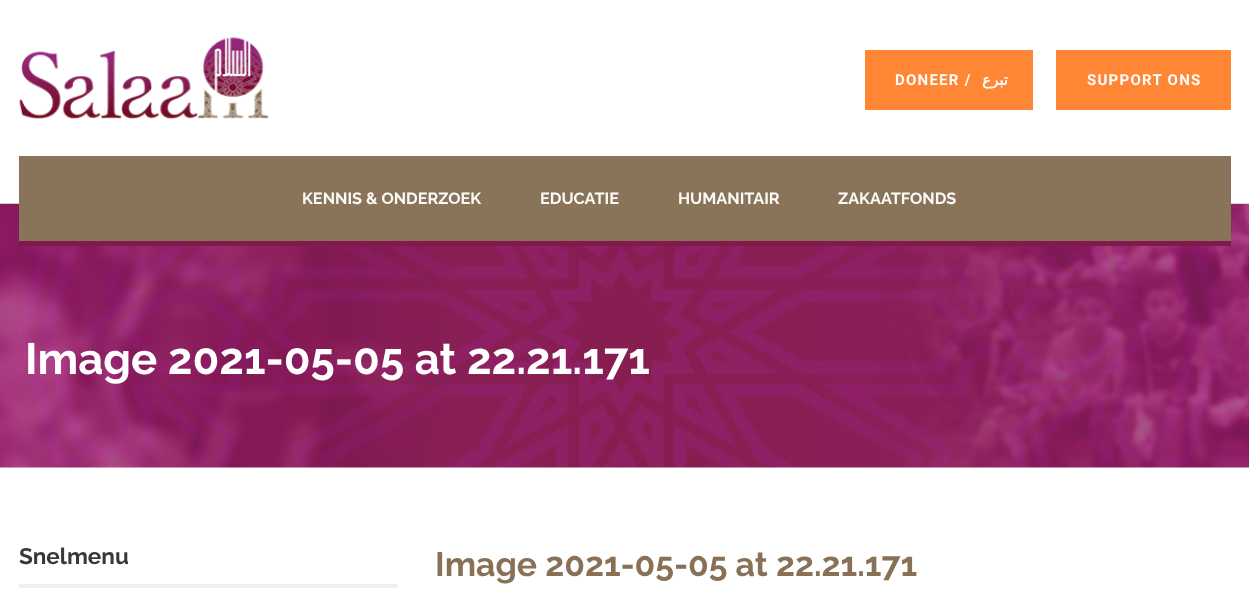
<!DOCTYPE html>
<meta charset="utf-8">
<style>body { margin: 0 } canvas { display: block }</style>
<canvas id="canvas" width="1249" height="614"></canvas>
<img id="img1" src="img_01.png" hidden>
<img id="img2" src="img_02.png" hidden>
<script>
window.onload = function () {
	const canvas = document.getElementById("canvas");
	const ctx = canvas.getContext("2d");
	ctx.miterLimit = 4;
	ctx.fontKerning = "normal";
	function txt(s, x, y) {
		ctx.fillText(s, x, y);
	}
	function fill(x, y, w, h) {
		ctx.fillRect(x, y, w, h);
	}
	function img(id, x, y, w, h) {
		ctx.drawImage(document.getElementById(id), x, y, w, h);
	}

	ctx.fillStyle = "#FFFFFF";
	fill(0, 0, 1249, 614);
	img("img1", 19, 37, 250, 82);
	ctx.fillStyle = "#FE8634";
	fill(865, 50, 168, 60);
	fill(1056, 50, 175, 60);
	img("img2", 0, 203, 1249, 265);
	ctx.fillStyle = "#897359";
	fill(19, 156, 1212, 85);
	ctx.fillStyle = "#81194C";
	fill(19, 241, 1212, 5);
	ctx.fillStyle = "#EFEFEF";
	fill(19, 584, 379, 4);
	ctx.letterSpacing = "1.25px";
	ctx.font = "bold 15px Roboto";
	ctx.fillStyle = "#FFFFFF";
	txt("DONEER /", 895, 85);
	ctx.direction = "rtl";
	ctx.font = "bold 15px DejaVu Sans";
	txt("تبرع", 1008, 85);
	ctx.direction = "ltr";
	ctx.font = "bold 15px Roboto";
	txt("SUPPORT ONS", 1087, 85);
	ctx.letterSpacing = "0px";
	ctx.font = "bold 16.25px Raleway";
	ctx.fillStyle = "#FCFAF7";
	txt("KENNIS & ONDERZOEK", 302, 204);
	txt("EDUCATIE", 540, 204);
	txt("HUMANITAIR", 678, 204);
	txt("ZAKAATFONDS", 838, 204);
	ctx.font = "bold 43.75px Raleway";
	ctx.fillStyle = "#FFFFFF";
	txt("Image 2021-05-05 at 22.21.171", 25, 374);
	ctx.font = "bold 22.5px Raleway";
	ctx.fillStyle = "#383838";
	txt("Snelmenu", 19, 564);
	ctx.font = "bold 33.75px Raleway";
	ctx.fillStyle = "#897158";
	txt("Image 2021-05-05 at 22.21.171", 435, 576);
};
</script>
